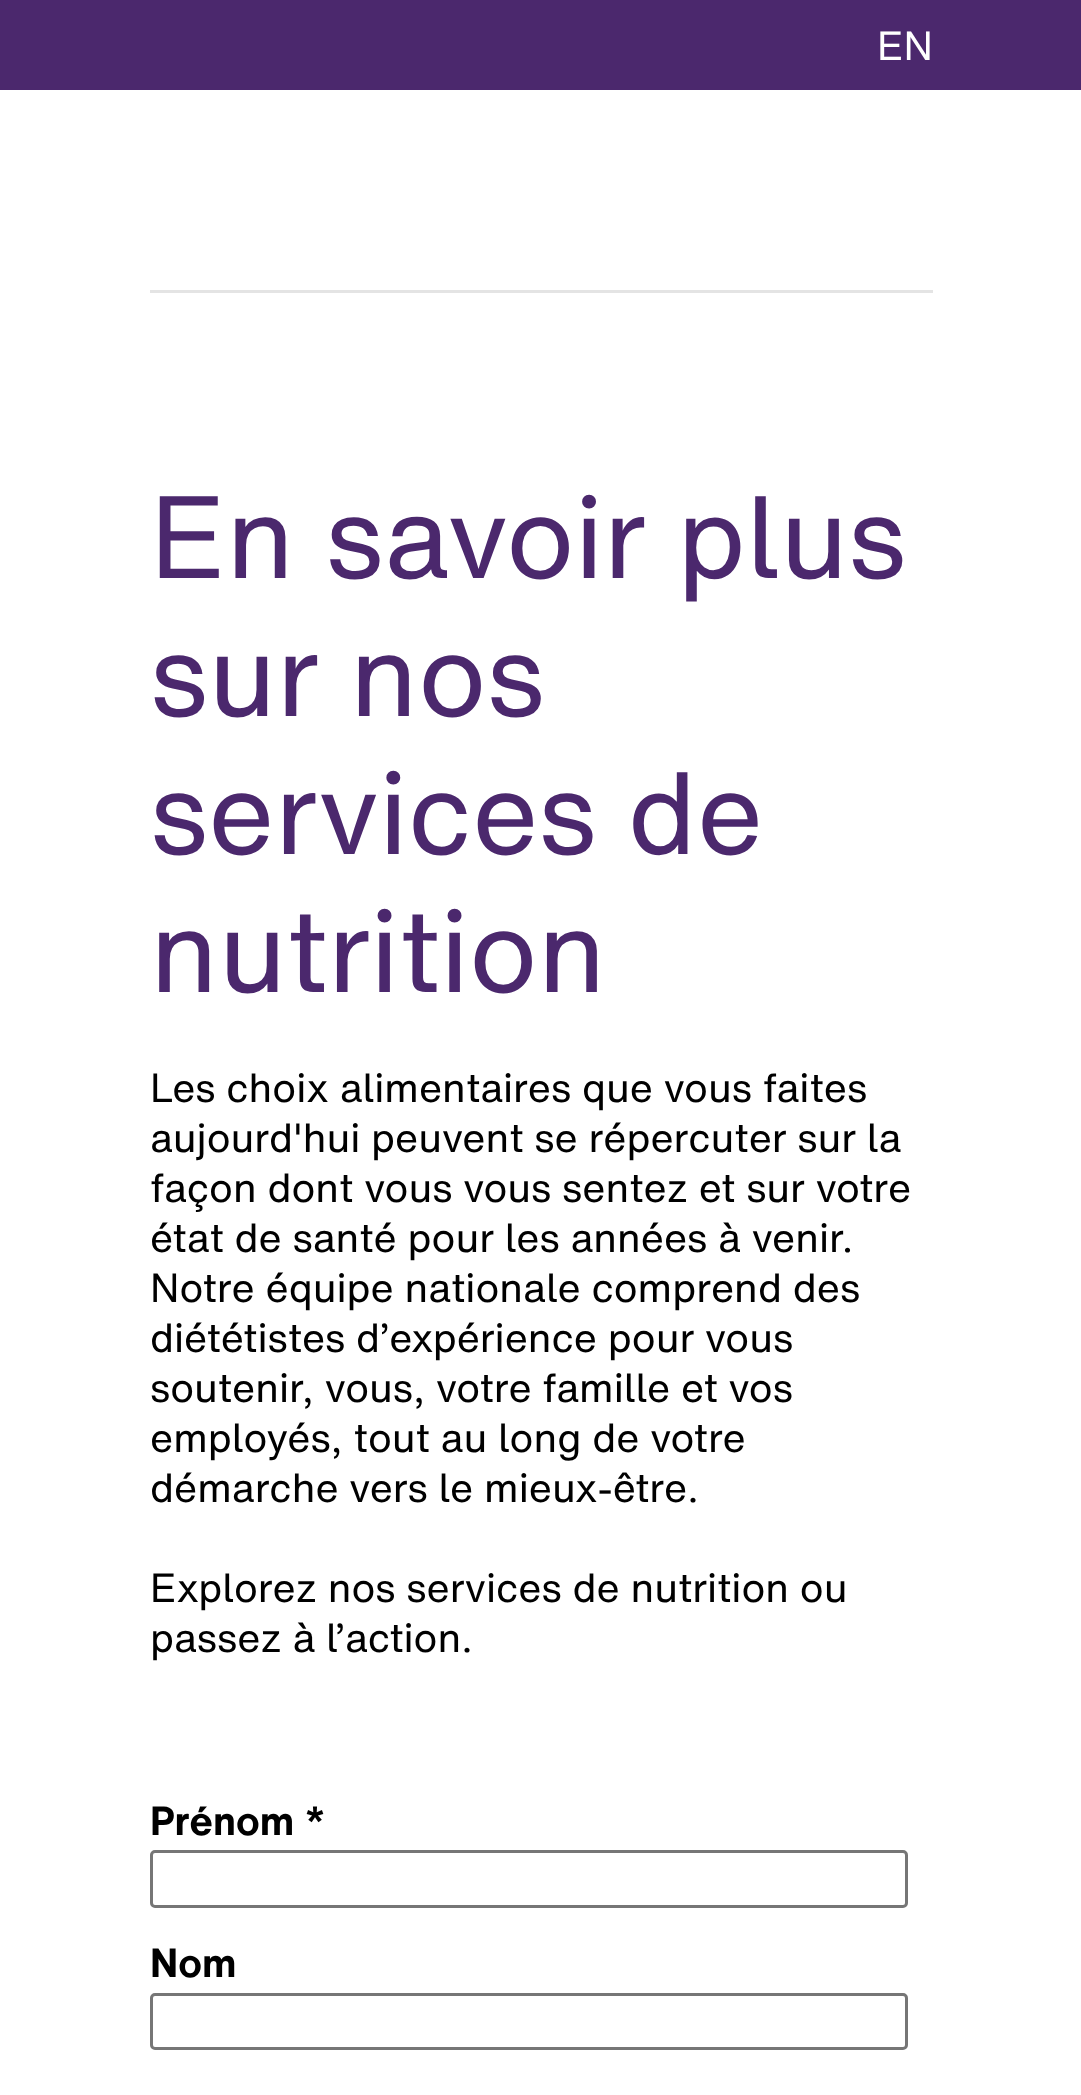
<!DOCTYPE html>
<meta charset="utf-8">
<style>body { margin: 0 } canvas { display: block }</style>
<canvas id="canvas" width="1081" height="2095"></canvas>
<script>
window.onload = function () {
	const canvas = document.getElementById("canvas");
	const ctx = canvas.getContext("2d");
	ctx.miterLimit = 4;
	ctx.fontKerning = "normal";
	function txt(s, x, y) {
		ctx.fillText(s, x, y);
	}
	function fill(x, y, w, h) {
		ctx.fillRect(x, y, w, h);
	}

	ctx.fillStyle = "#FFFFFF";
	fill(0, 0, 1081, 2095);
	ctx.fillStyle = "#4B286D";
	fill(0, 0, 1081, 90);
	ctx.fillStyle = "#E4E4E4";
	fill(150, 290, 783, 3);
	ctx.beginPath();
	ctx.roundRect(151.5, 1851.5, 755, 55, 3.5);
	ctx.strokeStyle = "#767676";
	ctx.lineWidth = 3;
	ctx.stroke();
	ctx.beginPath();
	ctx.roundRect(151.5, 1994.5, 755, 54, 3.5);
	ctx.stroke();
	ctx.font = "40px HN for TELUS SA";
	ctx.fillStyle = "#FFFFFF";
	txt("EN", 877, 60);
	ctx.font = "115px HN for TELUS SA";
	ctx.fillStyle = "#4B286D";
	txt("En savoir plus", 150, 578);
	txt("sur nos", 150, 716);
	txt("services de", 150, 854);
	txt("nutrition", 150, 992);
	ctx.font = "40px HN for TELUS SA";
	ctx.fillStyle = "#000000";
	txt("Les choix alimentaires que vous faites", 150, 1102);
	txt("aujourd'hui peuvent se répercuter sur la", 150, 1152);
	txt("façon dont vous vous sentez et sur votre", 150, 1202);
	txt("état de santé pour les années à venir.", 150, 1252);
	txt("Notre équipe nationale comprend des", 150, 1302);
	txt("diététistes d’expérience pour vous", 150, 1352);
	txt("soutenir, vous, votre famille et vos", 150, 1402);
	txt("employés, tout au long de votre", 150, 1452);
	txt("démarche vers le mieux-être.", 150, 1502);
	txt("Explorez nos services de nutrition ou", 150, 1602);
	txt("passez à l’action.", 150, 1652);
	ctx.font = "bold 40px HN for TELUS SA";
	txt("Prénom *", 150, 1835);
	txt("Nom", 150, 1977);
};
</script>
